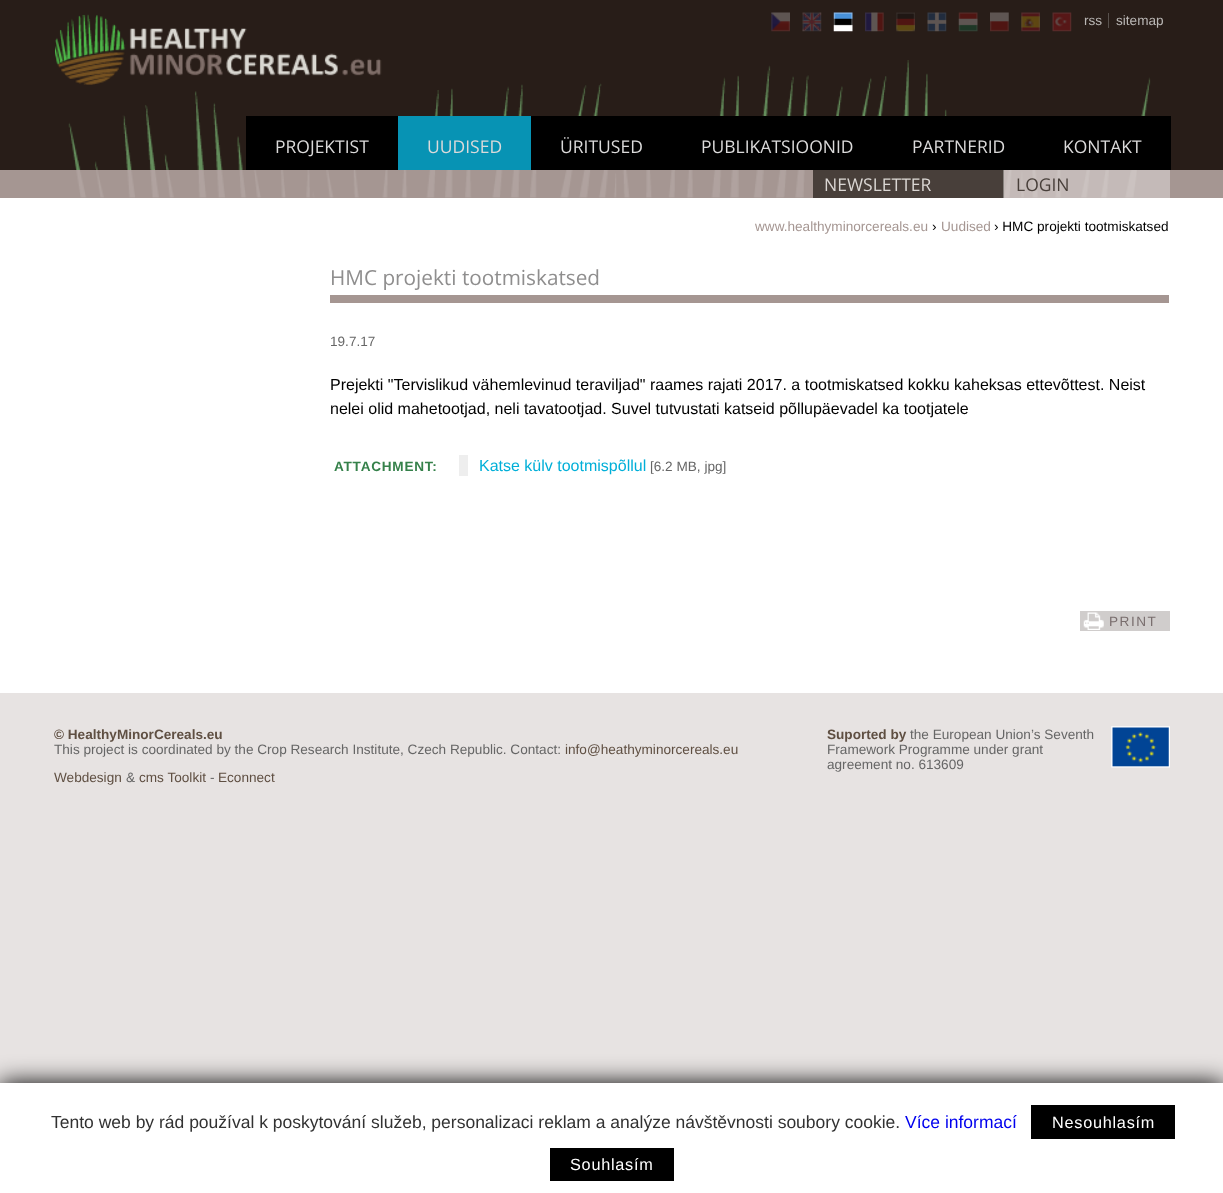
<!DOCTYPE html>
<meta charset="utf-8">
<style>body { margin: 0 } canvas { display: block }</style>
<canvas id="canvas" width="1223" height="1193"></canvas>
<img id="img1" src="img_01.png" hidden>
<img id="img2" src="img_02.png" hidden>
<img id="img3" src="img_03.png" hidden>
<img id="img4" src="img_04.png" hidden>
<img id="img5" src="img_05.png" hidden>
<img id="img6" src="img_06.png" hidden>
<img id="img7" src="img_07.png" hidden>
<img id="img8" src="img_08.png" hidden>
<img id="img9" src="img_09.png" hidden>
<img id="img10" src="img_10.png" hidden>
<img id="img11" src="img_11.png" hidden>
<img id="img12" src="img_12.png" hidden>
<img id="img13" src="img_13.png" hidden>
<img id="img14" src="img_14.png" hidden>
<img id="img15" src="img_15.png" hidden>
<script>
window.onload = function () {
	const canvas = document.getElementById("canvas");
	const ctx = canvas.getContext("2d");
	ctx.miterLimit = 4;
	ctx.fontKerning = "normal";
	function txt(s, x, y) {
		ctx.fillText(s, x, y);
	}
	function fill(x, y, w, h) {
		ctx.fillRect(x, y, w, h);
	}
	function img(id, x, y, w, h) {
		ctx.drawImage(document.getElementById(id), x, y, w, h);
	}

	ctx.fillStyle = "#E7E3E2";
	fill(0, 0, 1223, 1193);
	ctx.fillStyle = "#281D18";
	fill(0, 0, 1223, 170);
	img("img1", 68, 60, 1083, 110);
	img("img2", 55, 14, 327, 71);
	img("img3", 771, 12, 19, 20);
	img("img4", 802, 12, 20, 20);
	img("img5", 833, 12, 20, 20);
	img("img6", 865, 12, 19, 20);
	img("img7", 896, 12, 19, 20);
	img("img8", 927, 12, 20, 20);
	img("img9", 958, 12, 20, 20);
	img("img10", 990, 12, 19, 20);
	img("img11", 1021, 12, 19, 20);
	img("img12", 1052, 12, 20, 20);
	ctx.fillStyle = "#58514D";
	fill(1108, 13, 1, 15);
	ctx.fillStyle = "#000000";
	fill(246, 116, 925, 54);
	ctx.fillStyle = "#0793B4";
	fill(398, 116, 133, 54);
	ctx.fillStyle = "#A59692";
	fill(0, 170, 1223, 28);
	img("img13", 76, 170, 1061, 28);
	ctx.fillStyle = "#483F3A";
	fill(813, 170, 191, 28);
	ctx.fillStyle = "rgba(255, 255, 255, 0.35)";
	fill(1003, 170, 167, 28);
	ctx.fillStyle = "#FFFFFF";
	fill(0, 198, 1223, 495);
	ctx.fillStyle = "#A59692";
	fill(330, 295, 839, 8);
	ctx.fillStyle = "#EEEEEE";
	fill(459, 455, 9, 21);
	ctx.fillStyle = "#D0CDCC";
	fill(1080, 611, 90, 20);
	img("img14", 1083, 612, 21, 18);
	img("img15", 1111, 726, 59, 42);
	ctx.fillStyle = "#000000";
	ctx.filter = "blur(12px)";
	ctx.beginPath();
	ctx.rect(0, 1083, 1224, 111);
	ctx.fill();
	ctx.filter = "none";
	ctx.fillStyle = "#FFFFFF";
	fill(0, 1083, 1223, 110);
	ctx.fillStyle = "#000000";
	fill(1031, 1105, 144, 34);
	fill(550, 1148, 124, 33);
	ctx.font = "13.6px Liberation Sans";
	ctx.fillStyle = "#BAB7B5";
	txt("rss", 1084, 25);
	txt("sitemap", 1116, 25);
	ctx.font = "17.5px Open Sans";
	ctx.fillStyle = "#DBDADA";
	txt("PROJEKTIST", 275, 153);
	txt("UUDISED", 427, 153);
	txt("ÜRITUSED", 560, 153);
	txt("PUBLIKATSIOONID", 701, 153);
	txt("PARTNERID", 912, 153);
	txt("KONTAKT", 1063, 153);
	ctx.fillStyle = "#DAD6D3";
	txt("NEWSLETTER", 824, 191);
	ctx.fillStyle = "#483F3A";
	txt("LOGIN", 1016, 191);
	ctx.font = "13.6px Liberation Sans";
	ctx.fillStyle = "#A59692";
	txt("www.healthyminorcereals.eu", 755, 231);
	ctx.fillStyle = "#000000";
	txt("›", 932, 231);
	ctx.fillStyle = "#A59692";
	txt("Uudised", 941, 231);
	ctx.fillStyle = "#000000";
	txt("› HMC projekti tootmiskatsed", 994, 231);
	ctx.font = "20.75px Open Sans";
	ctx.fillStyle = "#8F8E8E";
	txt("HMC projekti tootmiskatsed", 330, 285);
	ctx.font = "13.6px Liberation Sans";
	ctx.fillStyle = "#666666";
	txt("19.7.17", 330, 346);
	ctx.font = "16px Liberation Sans";
	ctx.fillStyle = "#000000";
	txt("Prejekti \"Tervislikud vähemlevinud teraviljad\" raames rajati 2017. a tootmiskatsed kokku kaheksas ettevõttest. Neist", 330, 390);
	txt("nelei olid mahetootjad, neli tavatootjad. Suvel tutvustati katseid põllupäevadel ka tootjatele", 330, 414);
	ctx.letterSpacing = "0.75px";
	ctx.font = "bold 13.6px Liberation Sans";
	ctx.fillStyle = "#35814A";
	txt("ATTACHMENT:", 334, 471);
	ctx.letterSpacing = "0px";
	ctx.font = "16px Liberation Sans";
	ctx.fillStyle = "#01AFD8";
	txt("Katse külv tootmispõllul", 479, 471);
	ctx.font = "13.6px Liberation Sans";
	ctx.fillStyle = "#666666";
	txt("[6.2 MB, jpg]", 650, 471);
	ctx.letterSpacing = "1.5px";
	ctx.fillStyle = "#796E6E";
	txt("PRINT", 1109, 626);
	ctx.letterSpacing = "0px";
	ctx.font = "bold 13.6px Liberation Sans";
	ctx.fillStyle = "#5F4F42";
	txt("© HealthyMinorCereals.eu", 54, 739);
	ctx.font = "13.6px Liberation Sans";
	ctx.fillStyle = "#666666";
	txt("This project is coordinated by the Crop Research Institute, Czech Republic. Contact:", 54, 754);
	ctx.fillStyle = "#5F4F42";
	txt("info@heathyminorcereals.eu", 565, 754);
	txt("Webdesign", 54, 782);
	ctx.fillStyle = "#666666";
	txt("&", 126, 782);
	ctx.fillStyle = "#5F4F42";
	txt("cms Toolkit", 139, 782);
	ctx.fillStyle = "#666666";
	txt("-", 210, 782);
	ctx.fillStyle = "#5F4F42";
	txt("Econnect", 218, 782);
	ctx.font = "bold 13.6px Liberation Sans";
	txt("Suported by", 827, 739);
	ctx.font = "13.6px Liberation Sans";
	ctx.fillStyle = "#666666";
	txt("the European Union’s Seventh", 910, 739);
	txt("Framework Programme under grant", 827, 754);
	txt("agreement no. 613609", 827, 769);
	ctx.font = "17.5px Liberation Sans";
	ctx.fillStyle = "#323232";
	txt("Tento web by rád používal k poskytování služeb, personalizaci reklam a analýze návštěvnosti soubory cookie.", 51, 1128);
	ctx.fillStyle = "#0000EE";
	txt("Více informací", 905, 1128);
	ctx.letterSpacing = "0.75px";
	ctx.font = "16.25px Liberation Sans";
	ctx.fillStyle = "#FFFFFF";
	txt("Nesouhlasím", 1052, 1128);
	txt("Souhlasím", 570, 1170);
};
</script>
